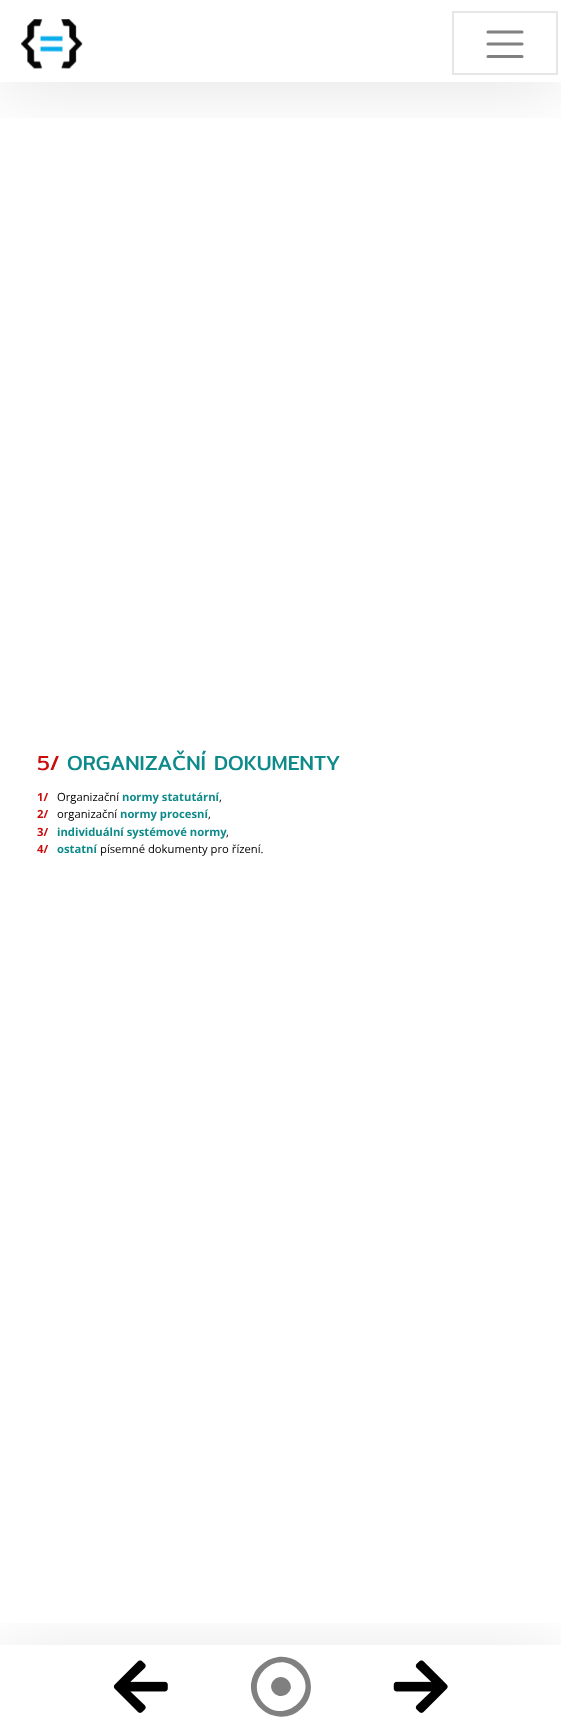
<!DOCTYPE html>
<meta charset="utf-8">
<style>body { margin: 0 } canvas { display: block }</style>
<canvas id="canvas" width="561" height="1727"></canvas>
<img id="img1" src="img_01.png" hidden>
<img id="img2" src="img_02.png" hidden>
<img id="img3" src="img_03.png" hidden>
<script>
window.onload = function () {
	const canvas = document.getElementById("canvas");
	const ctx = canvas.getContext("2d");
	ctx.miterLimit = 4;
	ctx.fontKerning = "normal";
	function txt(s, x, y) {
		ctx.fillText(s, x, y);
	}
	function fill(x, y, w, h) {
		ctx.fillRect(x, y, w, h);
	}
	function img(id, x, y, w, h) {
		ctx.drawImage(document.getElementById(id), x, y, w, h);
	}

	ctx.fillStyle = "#FFFFFF";
	fill(0, 0, 561, 1727);
	ctx.save();
	ctx.beginPath();
	ctx.rect(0, 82, 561, 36);
	ctx.clip();
	ctx.fillStyle = "rgba(0, 0, 0, 0.1)";
	ctx.filter = "blur(35px)";
	ctx.beginPath();
	ctx.rect(0, 7, 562, 82);
	ctx.fill();
	ctx.filter = "none";
	ctx.restore();
	img("img1", 21, 19, 62, 50);
	ctx.strokeStyle = "#E6E6E6";
	ctx.lineWidth = 2;
	ctx.strokeRect(453, 12, 104, 62);
	ctx.beginPath();
	ctx.moveTo(488, 32);
	ctx.lineTo(522, 32);
	ctx.moveTo(488, 44);
	ctx.lineTo(522, 44);
	ctx.moveTo(488, 56.5);
	ctx.lineTo(522, 56.5);
	ctx.strokeStyle = "#808080";
	ctx.lineWidth = 3.1;
	ctx.lineCap = "round";
	ctx.stroke();
	ctx.save();
	ctx.beginPath();
	ctx.rect(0, 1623, 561, 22);
	ctx.clip();
	ctx.fillStyle = "rgba(0, 0, 0, 0.1)";
	ctx.filter = "blur(35px)";
	ctx.beginPath();
	ctx.rect(0, 1652, 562, 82);
	ctx.fill();
	ctx.filter = "none";
	ctx.restore();
	img("img2", 113, 1660, 55, 53);
	ctx.fillStyle = "#808080";
	ctx.beginPath();
	ctx.moveTo(298, 1670);
	ctx.bezierCurveTo(276, 1647, 242, 1681, 264, 1704);
	ctx.bezierCurveTo(286, 1726, 321, 1692, 298, 1670);
	ctx.closePath();
	ctx.moveTo(260, 1666);
	ctx.bezierCurveTo(265, 1661, 271, 1658, 278, 1657);
	ctx.bezierCurveTo(306, 1654, 322, 1688, 302, 1708);
	ctx.bezierCurveTo(282, 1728, 249, 1711, 251, 1684);
	ctx.bezierCurveTo(252, 1677, 255, 1670, 260, 1666);
	ctx.closePath();
	ctx.moveTo(274, 1680);
	ctx.bezierCurveTo(283, 1671, 297, 1685, 288, 1693);
	ctx.bezierCurveTo(279, 1702, 265, 1689, 274, 1680);
	ctx.closePath();
	ctx.fill();
	img("img3", 393, 1660, 55, 53);
	ctx.font = "20.6px Mitr";
	ctx.fillStyle = "#C80D0D";
	txt("5/", 37, 770);
	ctx.fillStyle = "#0E8A8A";
	txt("ORGANIZAČNÍ DOKUMENTY", 67, 770);
	ctx.font = "bold 11.25px Open Sans";
	ctx.fillStyle = "#C80D0D";
	txt("1/", 37, 801);
	ctx.font = "11.25px Open Sans";
	ctx.fillStyle = "#000000";
	txt("Organizační", 57, 801);
	ctx.font = "bold 11.25px Open Sans";
	ctx.fillStyle = "#0E8A8A";
	txt("normy statutární", 122, 801);
	ctx.font = "11.25px Open Sans";
	ctx.fillStyle = "#000000";
	txt(",", 219, 801);
	ctx.font = "bold 11.25px Open Sans";
	ctx.fillStyle = "#C80D0D";
	txt("2/", 37, 818);
	ctx.font = "11.25px Open Sans";
	ctx.fillStyle = "#000000";
	txt("organizační", 57, 818);
	ctx.font = "bold 11.25px Open Sans";
	ctx.fillStyle = "#0E8A8A";
	txt("normy procesní", 120, 818);
	ctx.font = "11.25px Open Sans";
	ctx.fillStyle = "#000000";
	txt(",", 208, 818);
	ctx.font = "bold 11.25px Open Sans";
	ctx.fillStyle = "#C80D0D";
	txt("3/", 37, 836);
	ctx.fillStyle = "#0E8A8A";
	txt("individuální systémové normy", 57, 836);
	ctx.font = "11.25px Open Sans";
	ctx.fillStyle = "#000000";
	txt(",", 226, 836);
	ctx.font = "bold 11.25px Open Sans";
	ctx.fillStyle = "#C80D0D";
	txt("4/", 37, 853);
	ctx.fillStyle = "#0E8A8A";
	txt("ostatní", 57, 853);
	ctx.font = "11.25px Open Sans";
	ctx.fillStyle = "#000000";
	txt("písemné dokumenty pro řízení.", 100, 853);
};
</script>
